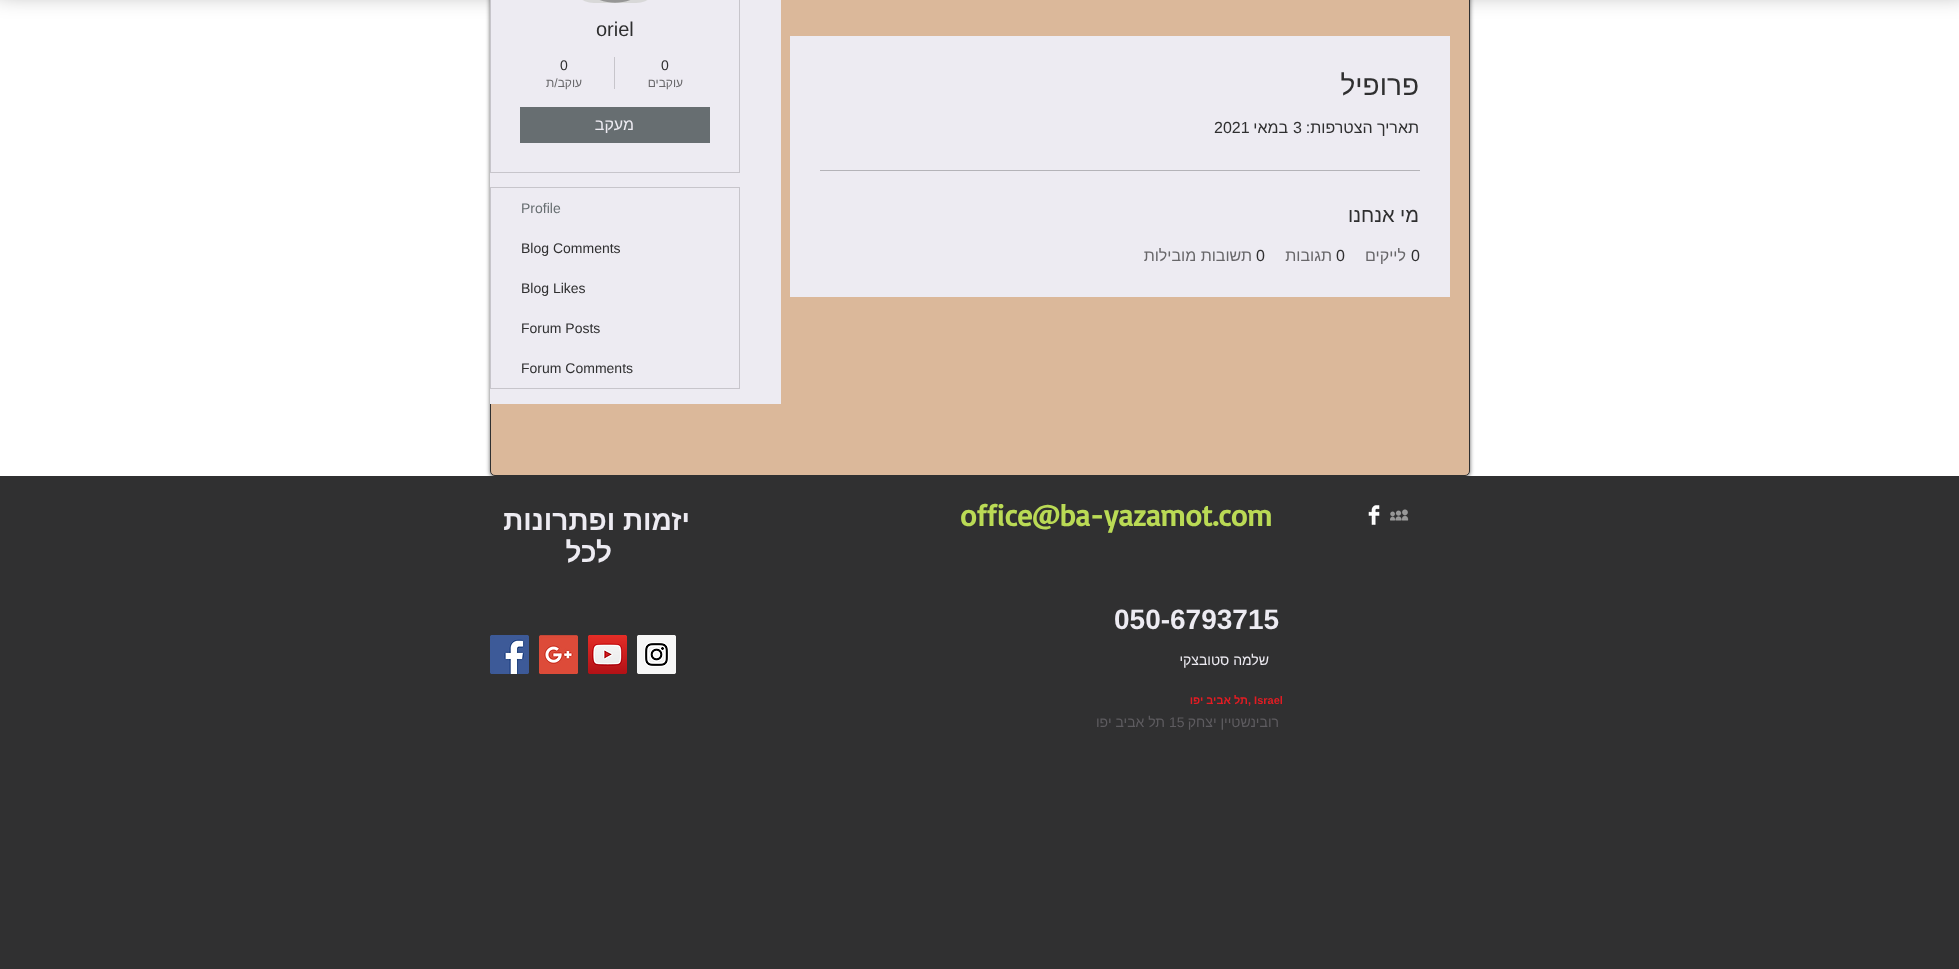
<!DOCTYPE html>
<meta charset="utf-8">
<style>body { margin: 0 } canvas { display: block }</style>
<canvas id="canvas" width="1959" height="969"></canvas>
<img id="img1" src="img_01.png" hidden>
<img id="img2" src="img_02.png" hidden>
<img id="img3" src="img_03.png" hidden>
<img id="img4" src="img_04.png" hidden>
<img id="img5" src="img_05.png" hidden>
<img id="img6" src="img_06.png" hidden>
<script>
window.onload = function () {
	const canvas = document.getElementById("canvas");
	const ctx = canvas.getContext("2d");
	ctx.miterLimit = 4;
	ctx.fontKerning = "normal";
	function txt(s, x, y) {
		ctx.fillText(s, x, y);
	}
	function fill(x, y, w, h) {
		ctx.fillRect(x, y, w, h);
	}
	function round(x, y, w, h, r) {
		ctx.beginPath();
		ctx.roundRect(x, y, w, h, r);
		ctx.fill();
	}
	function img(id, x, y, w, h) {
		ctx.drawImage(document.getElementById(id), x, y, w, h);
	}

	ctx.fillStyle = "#FFFFFF";
	fill(0, 0, 1959, 969);
	ctx.fillStyle = "rgba(0, 0, 0, 0.49)";
	ctx.filter = "blur(13.5px)";
	ctx.beginPath();
	ctx.rect(-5, -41, 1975, 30);
	ctx.fill();
	ctx.filter = "none";
	ctx.fillStyle = "rgba(0, 0, 0, 0.6)";
	ctx.filter = "blur(2px)";
	ctx.beginPath();
	ctx.roundRect(490, -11, 980, 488, 5);
	ctx.fill();
	ctx.filter = "none";
	ctx.fillStyle = "#DBB89A";
	ctx.beginPath();
	ctx.roundRect(490.5, -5.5, 979, 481, 4.5);
	ctx.fill();
	ctx.strokeStyle = "#2F2F30";
	ctx.stroke();
	ctx.fillStyle = "#EDEBF2";
	fill(790, 36, 660, 261);
	ctx.fillStyle = "#B4B3B8";
	fill(820, 170, 600, 1);
	ctx.fillStyle = "#EDEBF2";
	fill(490, 0, 291, 404);
	ctx.strokeStyle = "#C7C5CB";
	ctx.strokeRect(490.5, -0.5, 249, 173);
	ctx.fillStyle = "#D8D8D8";
	round(570, -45, 90, 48, 45);
	ctx.fillStyle = "#969696";
	ctx.beginPath();
	ctx.moveTo(649, -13);
	ctx.bezierCurveTo(631, 8, 599, 8, 581, -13);
	ctx.bezierCurveTo(596, -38, 634, -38, 649, -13);
	ctx.closePath();
	ctx.fill();
	ctx.fillStyle = "#C7C5CB";
	fill(614, 57, 1, 32);
	ctx.fillStyle = "#676E71";
	fill(520, 107, 190, 36);
	ctx.strokeRect(490.5, 187.5, 249, 201);
	ctx.fillStyle = "#303031";
	fill(0, 476, 1959, 493);
	img("img1", 1390, 509, 19, 12);
	img("img2", 1368, 505, 12, 20);
	img("img3", 637, 635, 39, 39);
	img("img4", 588, 635, 39, 39);
	img("img5", 539, 635, 39, 39);
	img("img6", 490, 635, 39, 39);
	ctx.direction = "rtl";
	ctx.font = "28px Liberation Sans";
	ctx.fillStyle = "#2F2F30";
	txt("פרופיל", 1419, 95);
	ctx.font = "16px Liberation Sans";
	txt("תאריך הצטרפות:", 1419, 133);
	ctx.direction = "ltr";
	txt("3", 1293, 133);
	ctx.direction = "rtl";
	txt("במאי", 1288, 133);
	ctx.direction = "ltr";
	txt("2021", 1214, 133);
	ctx.direction = "rtl";
	ctx.font = "20px Liberation Sans";
	txt("מי אנחנו", 1419, 222);
	ctx.direction = "ltr";
	ctx.font = "16px Liberation Sans";
	txt("0", 1411, 261);
	ctx.direction = "rtl";
	ctx.fillStyle = "#68676A";
	txt("לייקים", 1406, 261);
	ctx.direction = "ltr";
	ctx.fillStyle = "#2F2F30";
	txt("0", 1336, 261);
	ctx.direction = "rtl";
	ctx.fillStyle = "#68676A";
	txt("תגובות", 1332, 261);
	ctx.direction = "ltr";
	ctx.fillStyle = "#2F2F30";
	txt("0", 1256, 261);
	ctx.direction = "rtl";
	ctx.fillStyle = "#68676A";
	txt("תשובות מובילות", 1252, 261);
	ctx.direction = "ltr";
	ctx.font = "20px Liberation Sans";
	ctx.fillStyle = "#2F2F30";
	txt("oriel", 596, 36);
	ctx.font = "14px Liberation Sans";
	txt("0", 661, 70);
	ctx.direction = "rtl";
	ctx.font = "12px Liberation Sans";
	ctx.fillStyle = "#68676A";
	txt("עוקבים", 683, 87);
	ctx.direction = "ltr";
	ctx.font = "14px Liberation Sans";
	ctx.fillStyle = "#2F2F30";
	txt("0", 560, 70);
	ctx.direction = "rtl";
	ctx.font = "12px Liberation Sans";
	ctx.fillStyle = "#68676A";
	txt("עוקב/ת", 582, 87);
	ctx.font = "16px Liberation Sans";
	ctx.fillStyle = "#EDEBF2";
	txt("מעקב", 634, 130);
	ctx.direction = "ltr";
	ctx.font = "14px Liberation Sans";
	ctx.fillStyle = "#676E71";
	txt("Profile", 521, 213);
	ctx.fillStyle = "#2F2F30";
	txt("Blog Comments", 521, 253);
	txt("Blog Likes", 521, 293);
	txt("Forum Posts", 521, 333);
	txt("Forum Comments", 521, 373);
	ctx.font = "bold 30px Basic";
	ctx.fillStyle = "#BADA55";
	txt("office@ba-yazamot.com", 960, 526);
	ctx.direction = "rtl";
	ctx.font = "bold 28px Liberation Sans";
	ctx.fillStyle = "#EDEBF2";
	txt("יזמות ופתרונות", 690, 530);
	txt("לכל", 612, 562);
	ctx.direction = "ltr";
	txt("050-6793715", 1114, 629);
	ctx.direction = "rtl";
	ctx.font = "14px Liberation Sans";
	txt("שלמה סטובצקי", 1269, 665);
	ctx.direction = "ltr";
	ctx.font = "bold 11px Liberation Sans";
	ctx.fillStyle = "#E31C23";
	txt(", Israel", 1248, 704);
	ctx.direction = "rtl";
	txt("תל אביב יפו", 1248, 704);
	ctx.font = "14px Liberation Sans";
	ctx.fillStyle = "#5E5C60";
	txt("רובינשטיין יצחק", 1279, 727);
	ctx.direction = "ltr";
	txt("15", 1169, 727);
	ctx.direction = "rtl";
	txt("תל אביב יפו", 1165, 727);
};
</script>
